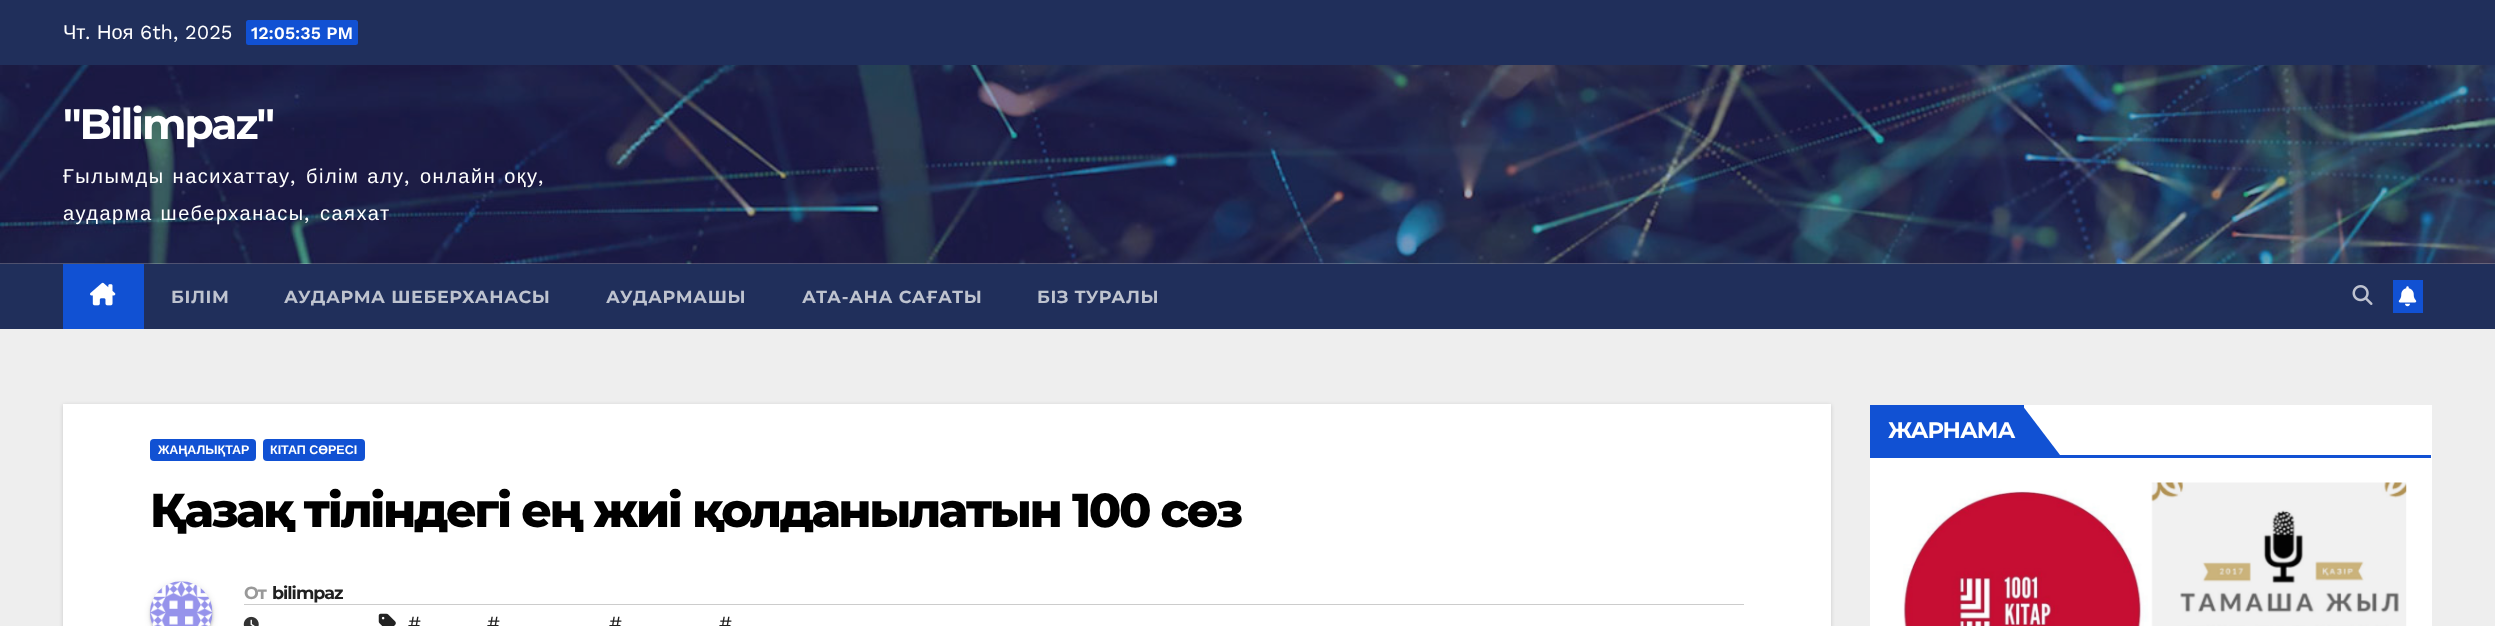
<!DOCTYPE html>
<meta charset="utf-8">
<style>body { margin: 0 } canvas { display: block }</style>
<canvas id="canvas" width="2495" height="626"></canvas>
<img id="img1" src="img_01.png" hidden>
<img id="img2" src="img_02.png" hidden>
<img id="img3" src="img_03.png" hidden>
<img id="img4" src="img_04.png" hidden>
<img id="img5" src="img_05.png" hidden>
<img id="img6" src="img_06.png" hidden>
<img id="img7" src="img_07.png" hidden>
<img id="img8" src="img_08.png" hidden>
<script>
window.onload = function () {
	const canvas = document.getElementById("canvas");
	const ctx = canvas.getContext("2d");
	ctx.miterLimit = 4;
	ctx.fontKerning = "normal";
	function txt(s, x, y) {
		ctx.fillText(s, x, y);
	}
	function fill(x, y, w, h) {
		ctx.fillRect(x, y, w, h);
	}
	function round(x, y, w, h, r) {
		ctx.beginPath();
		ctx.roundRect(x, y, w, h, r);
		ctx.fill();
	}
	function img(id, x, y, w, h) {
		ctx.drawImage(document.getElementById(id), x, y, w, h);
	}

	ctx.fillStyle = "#EEEEEE";
	fill(0, 0, 2495, 626);
	ctx.fillStyle = "#202F5B";
	fill(0, 0, 2495, 65);
	ctx.fillStyle = "#1151D3";
	round(246, 20, 112, 25, 2.5);
	img("img1", 0, 65, 2495, 199);
	ctx.fillStyle = "#202F5B";
	fill(0, 264, 2495, 65);
	ctx.fillStyle = "#1151D3";
	fill(63, 264, 81, 65);
	img("img2", 90, 282, 26, 24);
	img("img3", 2352, 285, 21, 20);
	fill(2393, 280, 30, 33);
	img("img4", 2398, 286, 19, 21);
	ctx.fillStyle = "#FFFFFF";
	fill(1870, 405, 562, 221);
	ctx.fillStyle = "#1151D3";
	fill(1870, 455, 561, 3);
	fill(1870, 405, 154, 50);
	ctx.beginPath();
	ctx.moveTo(2022, 455);
	ctx.lineTo(2022, 405);
	ctx.lineTo(2060, 455);
	ctx.closePath();
	ctx.fill();
	img("img5", 1903, 482, 504, 144);
	ctx.fillStyle = "rgba(0, 0, 0, 0.15)";
	ctx.filter = "blur(2px)";
	ctx.beginPath();
	ctx.rect(63, 405, 1768, 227);
	ctx.fill();
	ctx.filter = "none";
	ctx.fillStyle = "#FFFFFF";
	fill(63, 404, 1768, 222);
	ctx.fillStyle = "#1151D3";
	round(150, 439, 106, 22, 4);
	round(263, 439, 102, 22, 4);
	ctx.fillStyle = "rgba(0, 0, 0, 0.12)";
	ctx.filter = "blur(3px)";
	ctx.beginPath();
	ctx.roundRect(150, 583, 63, 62, 31);
	ctx.fill();
	ctx.filter = "none";
	ctx.fillStyle = "rgba(0, 0, 0, 0.14)";
	ctx.filter = "blur(1px)";
	ctx.beginPath();
	ctx.roundRect(150, 584, 63, 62, 31);
	ctx.fill();
	ctx.filter = "none";
	img("img6", 150, 581, 63, 45);
	ctx.fillStyle = "#CCCCCC";
	fill(244, 604, 1500, 1);
	img("img7", 243, 616, 16, 10);
	img("img8", 378, 613, 18, 13);
	ctx.font = "20px Liberation Sans";
	ctx.fillStyle = "#FFFFFF";
	txt("Чт", 63, 39);
	ctx.font = "20px Work Sans";
	txt(".", 85, 39);
	ctx.font = "20px Liberation Sans";
	txt("Ноя", 97, 39);
	ctx.font = "20px Work Sans";
	txt("6th, 2025", 140, 39);
	ctx.font = "600 17.5px Work Sans";
	txt("12:05:35 PM", 251, 39);
	ctx.letterSpacing = "-2.1px";
	ctx.font = "bold 42.5px Montserrat";
	txt("\"Bilimpaz\"", 63, 139);
	ctx.letterSpacing = "1.5px";
	ctx.wordSpacing = "1px";
	ctx.font = "20px Liberation Sans";
	txt("Ғылымды насихаттау", 63, 183);
	ctx.wordSpacing = "0px";
	ctx.font = "20px Work Sans";
	txt(",", 290, 183);
	ctx.wordSpacing = "1px";
	ctx.font = "20px Liberation Sans";
	txt("білім алу", 306, 183);
	ctx.wordSpacing = "0px";
	ctx.font = "20px Work Sans";
	txt(",", 404, 183);
	ctx.wordSpacing = "1px";
	ctx.font = "20px Liberation Sans";
	txt("онлайн оқу", 420, 183);
	ctx.wordSpacing = "0px";
	ctx.font = "20px Work Sans";
	txt(",", 538, 183);
	ctx.wordSpacing = "1px";
	ctx.font = "20px Liberation Sans";
	txt("аударма шеберханасы", 63, 220);
	ctx.wordSpacing = "0px";
	ctx.font = "20px Work Sans";
	txt(",", 304, 220);
	ctx.font = "20px Liberation Sans";
	txt("саяхат", 320, 220);
	ctx.letterSpacing = "0.6px";
	ctx.font = "bold 17.5px Montserrat";
	ctx.fillStyle = "#BEC3CF";
	txt("БІЛІМ", 171, 303);
	txt("АУДАРМА ШЕБЕРХАНАСЫ", 284, 303);
	txt("АУДАРМАШЫ", 606, 303);
	txt("АТА-АНА САҒАТЫ", 802, 303);
	txt("БІЗ ТУРАЛЫ", 1037, 303);
	ctx.letterSpacing = "-1px";
	ctx.font = "bold 22.5px Montserrat";
	ctx.fillStyle = "#FFFFFF";
	txt("ЖАРНАМА", 1888, 438);
	ctx.letterSpacing = "0px";
	ctx.font = "bold 12.5px Liberation Sans";
	txt("ЖАҢАЛЫҚТАР", 158, 454);
	txt("КІТАП СӨРЕСІ", 270, 454);
	ctx.letterSpacing = "-2.4px";
	ctx.font = "800 47.5px Montserrat";
	ctx.fillStyle = "#000000";
	txt("Қазақ тіліндегі ең жиі қолданылатын 100 сөз", 150, 527);
	ctx.letterSpacing = "-1px";
	ctx.font = "bold 17.5px Montserrat";
	ctx.fillStyle = "#999999";
	txt("От", 244, 599);
	ctx.fillStyle = "#212121";
	txt("bilimpaz", 272, 599);
	ctx.letterSpacing = "0px";
	ctx.font = "20px Work Sans";
	txt("#", 408, 630);
	txt("#", 487, 630);
	txt("#", 609, 630);
	txt("#", 719, 630);
};
</script>
